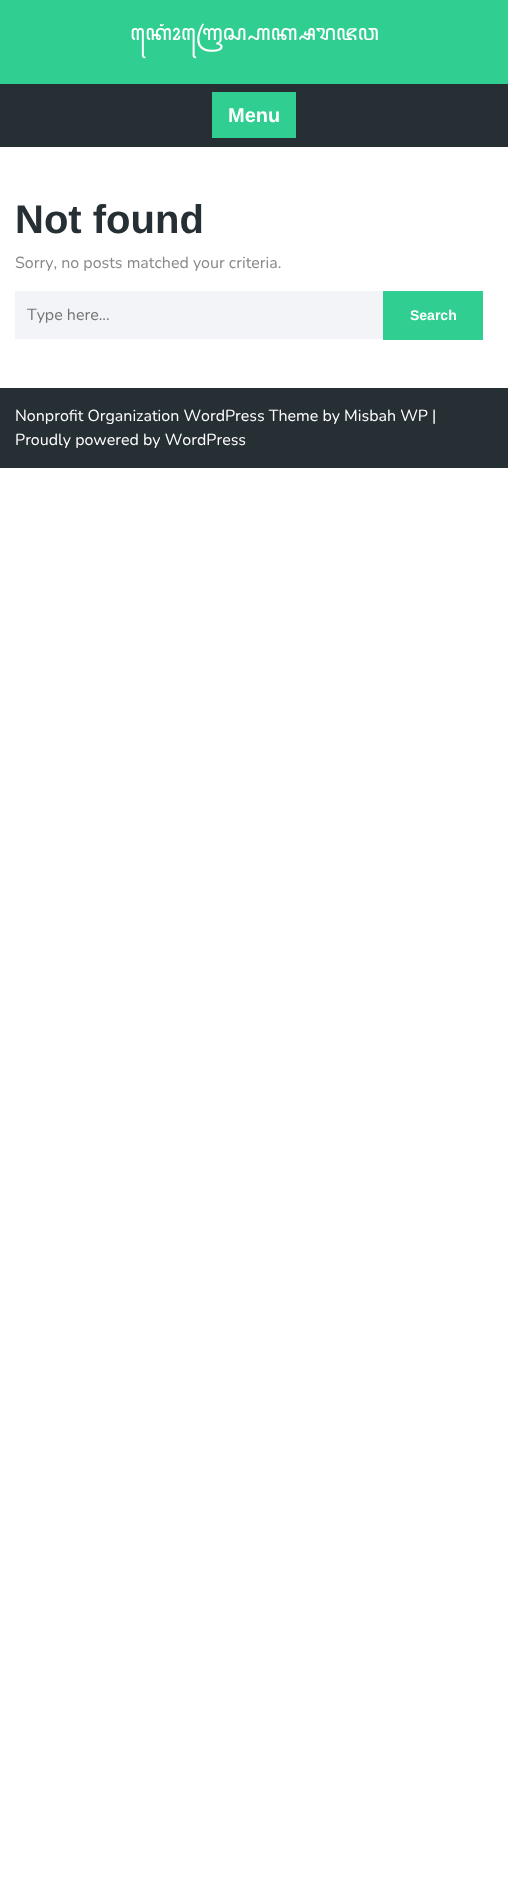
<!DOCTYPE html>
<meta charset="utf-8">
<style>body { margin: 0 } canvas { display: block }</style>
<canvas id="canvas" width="508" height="1896"></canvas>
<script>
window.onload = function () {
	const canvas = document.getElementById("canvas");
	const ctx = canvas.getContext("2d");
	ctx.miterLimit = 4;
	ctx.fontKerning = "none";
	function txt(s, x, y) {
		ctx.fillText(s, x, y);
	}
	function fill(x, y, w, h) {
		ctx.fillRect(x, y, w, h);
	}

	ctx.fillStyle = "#FFFFFF";
	fill(0, 0, 508, 1896);
	ctx.fillStyle = "#30CF91";
	fill(0, 0, 508, 84);
	ctx.fillStyle = "#262F34";
	fill(0, 84, 508, 63);
	ctx.fillStyle = "#30CF91";
	fill(212, 92, 84, 46);
	ctx.fillStyle = "#F3F4F7";
	fill(15, 291, 368, 48);
	ctx.fillStyle = "#30CF91";
	fill(383, 291, 100, 49);
	ctx.fillStyle = "#262F34";
	fill(0, 388, 508, 80);
	ctx.font = "22px Noto Sans Javanese";
	ctx.fillStyle = "#FFFFFF";
	txt("ꦏꦺꦴꦁꦒꦿꦺꦱ꧀ꦲꦏ꧀ꦱꦫꦗꦮ", 130, 40);
	ctx.font = "bold 20px Liberation Sans";
	txt("Menu", 228, 122);
	ctx.font = "bold 40px Liberation Sans";
	ctx.fillStyle = "#262F34";
	txt("Not found", 15, 233);
	ctx.font = "200 16px Nunito";
	ctx.fillStyle = "#888888";
	txt("Sorry, no posts matched your criteria.", 15, 268);
	ctx.fillStyle = "#757575";
	txt("Type here...", 27, 320);
	ctx.font = "bold 14px Liberation Sans";
	ctx.fillStyle = "#FFFFFF";
	txt("Search", 410, 320);
	ctx.font = "200 16px Nunito";
	txt("Nonprofit Organization WordPress Theme by Misbah WP |", 15, 421);
	txt("Proudly powered by WordPress", 15, 445);
};
</script>
